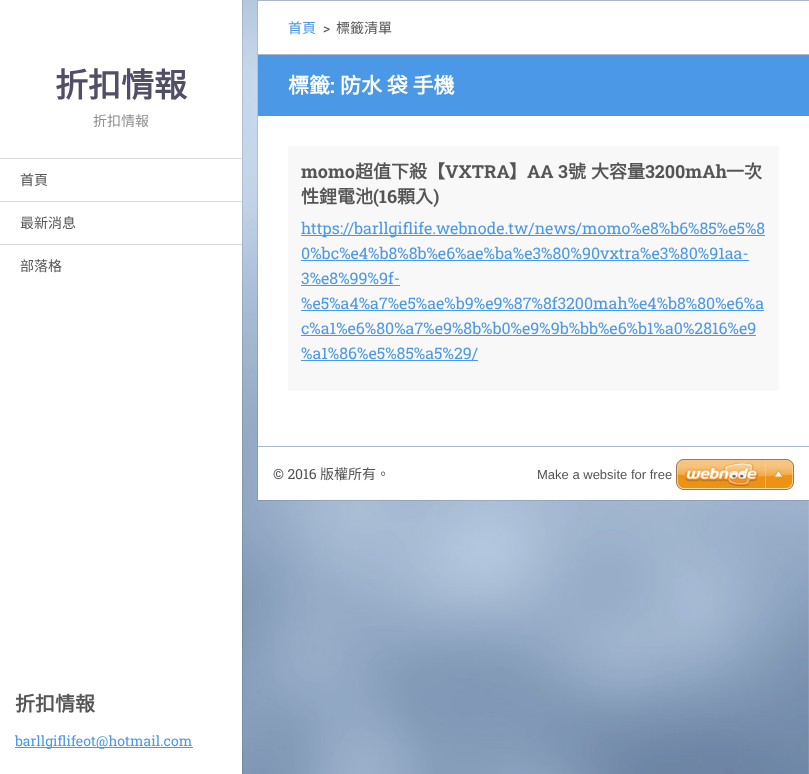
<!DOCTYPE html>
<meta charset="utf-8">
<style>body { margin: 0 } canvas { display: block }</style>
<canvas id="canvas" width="809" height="774"></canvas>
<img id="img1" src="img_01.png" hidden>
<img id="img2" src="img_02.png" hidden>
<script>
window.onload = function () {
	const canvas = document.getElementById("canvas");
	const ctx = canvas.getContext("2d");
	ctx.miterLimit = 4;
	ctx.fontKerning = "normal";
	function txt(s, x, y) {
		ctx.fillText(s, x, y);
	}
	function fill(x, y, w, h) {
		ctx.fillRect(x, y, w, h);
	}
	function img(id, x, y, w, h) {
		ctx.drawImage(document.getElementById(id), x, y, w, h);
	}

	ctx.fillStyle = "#FFFFFF";
	fill(0, 0, 809, 774);
	img("img1", 242, 0, 567, 774);
	ctx.strokeStyle = "rgba(0, 0, 0, 0.1)";
	ctx.strokeRect(-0.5, -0.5, 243, 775);
	ctx.fillStyle = "#D9D9D9";
	fill(0, 158, 242, 1);
	fill(0, 201, 242, 1);
	fill(0, 244, 242, 1);
	ctx.fillStyle = "#4B98E7";
	fill(15, 747, 47, 1);
	fill(62, 747, 131, 1);
	ctx.fillStyle = "#FFFFFF";
	fill(258, 1, 551, 53);
	ctx.fillStyle = "#AAB9CA";
	fill(258, 0, 551, 1);
	fill(258, 54, 551, 1);
	ctx.fillStyle = "#4B98E7";
	fill(258, 55, 551, 61);
	ctx.fillStyle = "#FFFFFF";
	fill(258, 116, 551, 300);
	ctx.strokeRect(257.5, -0.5, 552, 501);
	ctx.fillStyle = "#F8F8F8";
	fill(288, 146, 491, 245);
	ctx.fillStyle = "#4B98E7";
	fill(301, 235, 464, 1);
	fill(301, 260, 448, 1);
	fill(301, 285, 99, 1);
	fill(301, 310, 463, 1);
	fill(301, 335, 455, 1);
	fill(301, 360, 177, 1);
	ctx.fillStyle = "#FFFFFF";
	fill(258, 416, 551, 30);
	fill(258, 447, 551, 53);
	ctx.fillStyle = "#AAB9CA";
	fill(258, 446, 551, 1);
	img("img2", 676, 459, 118, 31);
	ctx.font = "bold 33px Noto Sans CJK TC";
	ctx.fillStyle = "#514F66";
	txt("折扣情報", 55, 97);
	ctx.font = "14px Noto Sans CJK TC";
	ctx.fillStyle = "#8F8F8F";
	txt("折扣情報", 93, 126);
	ctx.fillStyle = "#555555";
	txt("首頁", 20, 185);
	txt("最新消息", 20, 228);
	txt("部落格", 20, 271);
	ctx.font = "bold 20px Noto Sans CJK TC";
	txt("折扣情報", 15, 711);
	ctx.font = "14px Roboto Slab";
	ctx.fillStyle = "#4B98E7";
	txt("barllgif", 15, 746);
	txt("lifeot@hotmail.com", 62, 746);
	ctx.font = "14px Noto Sans CJK TC";
	txt("首頁", 288, 33);
	ctx.font = "14px Roboto Slab";
	ctx.fillStyle = "#555555";
	txt(">", 323, 33);
	ctx.font = "14px Noto Sans CJK TC";
	txt("標籤清單", 336, 33);
	ctx.font = "bold 21px Noto Sans CJK TC";
	ctx.fillStyle = "#FFFFFF";
	txt("標籤", 288, 93);
	ctx.font = "bold 21px Roboto Slab";
	txt(":", 330, 93);
	ctx.font = "bold 21px Noto Sans CJK TC";
	txt("防水 袋 手機", 340, 93);
	ctx.font = "bold 18px Roboto Slab";
	ctx.fillStyle = "#555555";
	txt("momo", 301, 178);
	ctx.font = "bold 18px Noto Sans CJK TC";
	txt("超值下殺【", 355, 178);
	ctx.font = "bold 18px Roboto Slab";
	txt("VXTRA", 445, 178);
	ctx.font = "bold 18px Noto Sans CJK TC";
	txt("】", 509, 178);
	ctx.font = "bold 18px Roboto Slab";
	txt("AA 3", 527, 178);
	ctx.font = "bold 18px Noto Sans CJK TC";
	txt("號", 568, 178);
	txt("大容量", 591, 178);
	ctx.font = "bold 18px Roboto Slab";
	txt("3200mAh", 645, 178);
	ctx.font = "bold 18px Noto Sans CJK TC";
	txt("一次", 726, 178);
	txt("性鋰電池", 301, 203);
	ctx.font = "bold 18px Roboto Slab";
	txt("(16", 373, 203);
	ctx.font = "bold 18px Noto Sans CJK TC";
	txt("顆入", 397, 203);
	ctx.font = "bold 18px Roboto Slab";
	txt(")", 433, 203);
	ctx.font = "16px Roboto Slab";
	ctx.fillStyle = "#4B98E7";
	txt("https://barllgiflife.webnode.tw/news/momo%e8%b6%85%e5%8", 301, 234);
	txt("0%bc%e4%b8%8b%e6%ae%ba%e3%80%90vxtra%e3%80%91aa-", 301, 259);
	txt("3%e8%99%9f-", 301, 284);
	txt("%e5%a4%a7%e5%ae%b9%e9%87%8f3200mah%e4%b8%80%e6%a", 301, 309);
	txt("c%a1%e6%80%a7%e9%8b%b0%e9%9b%bb%e6%b1%a0%2816%e9", 301, 334);
	txt("%a1%86%e5%85%a5%29/", 301, 359);
	ctx.font = "14px Roboto Slab";
	ctx.fillStyle = "#555555";
	txt("© 2016", 273, 479);
	ctx.font = "14px Noto Sans CJK TC";
	txt("版權所有。", 320, 479);
	ctx.font = "13px Liberation Sans";
	txt("Make a website for free", 537, 479);
};
</script>
